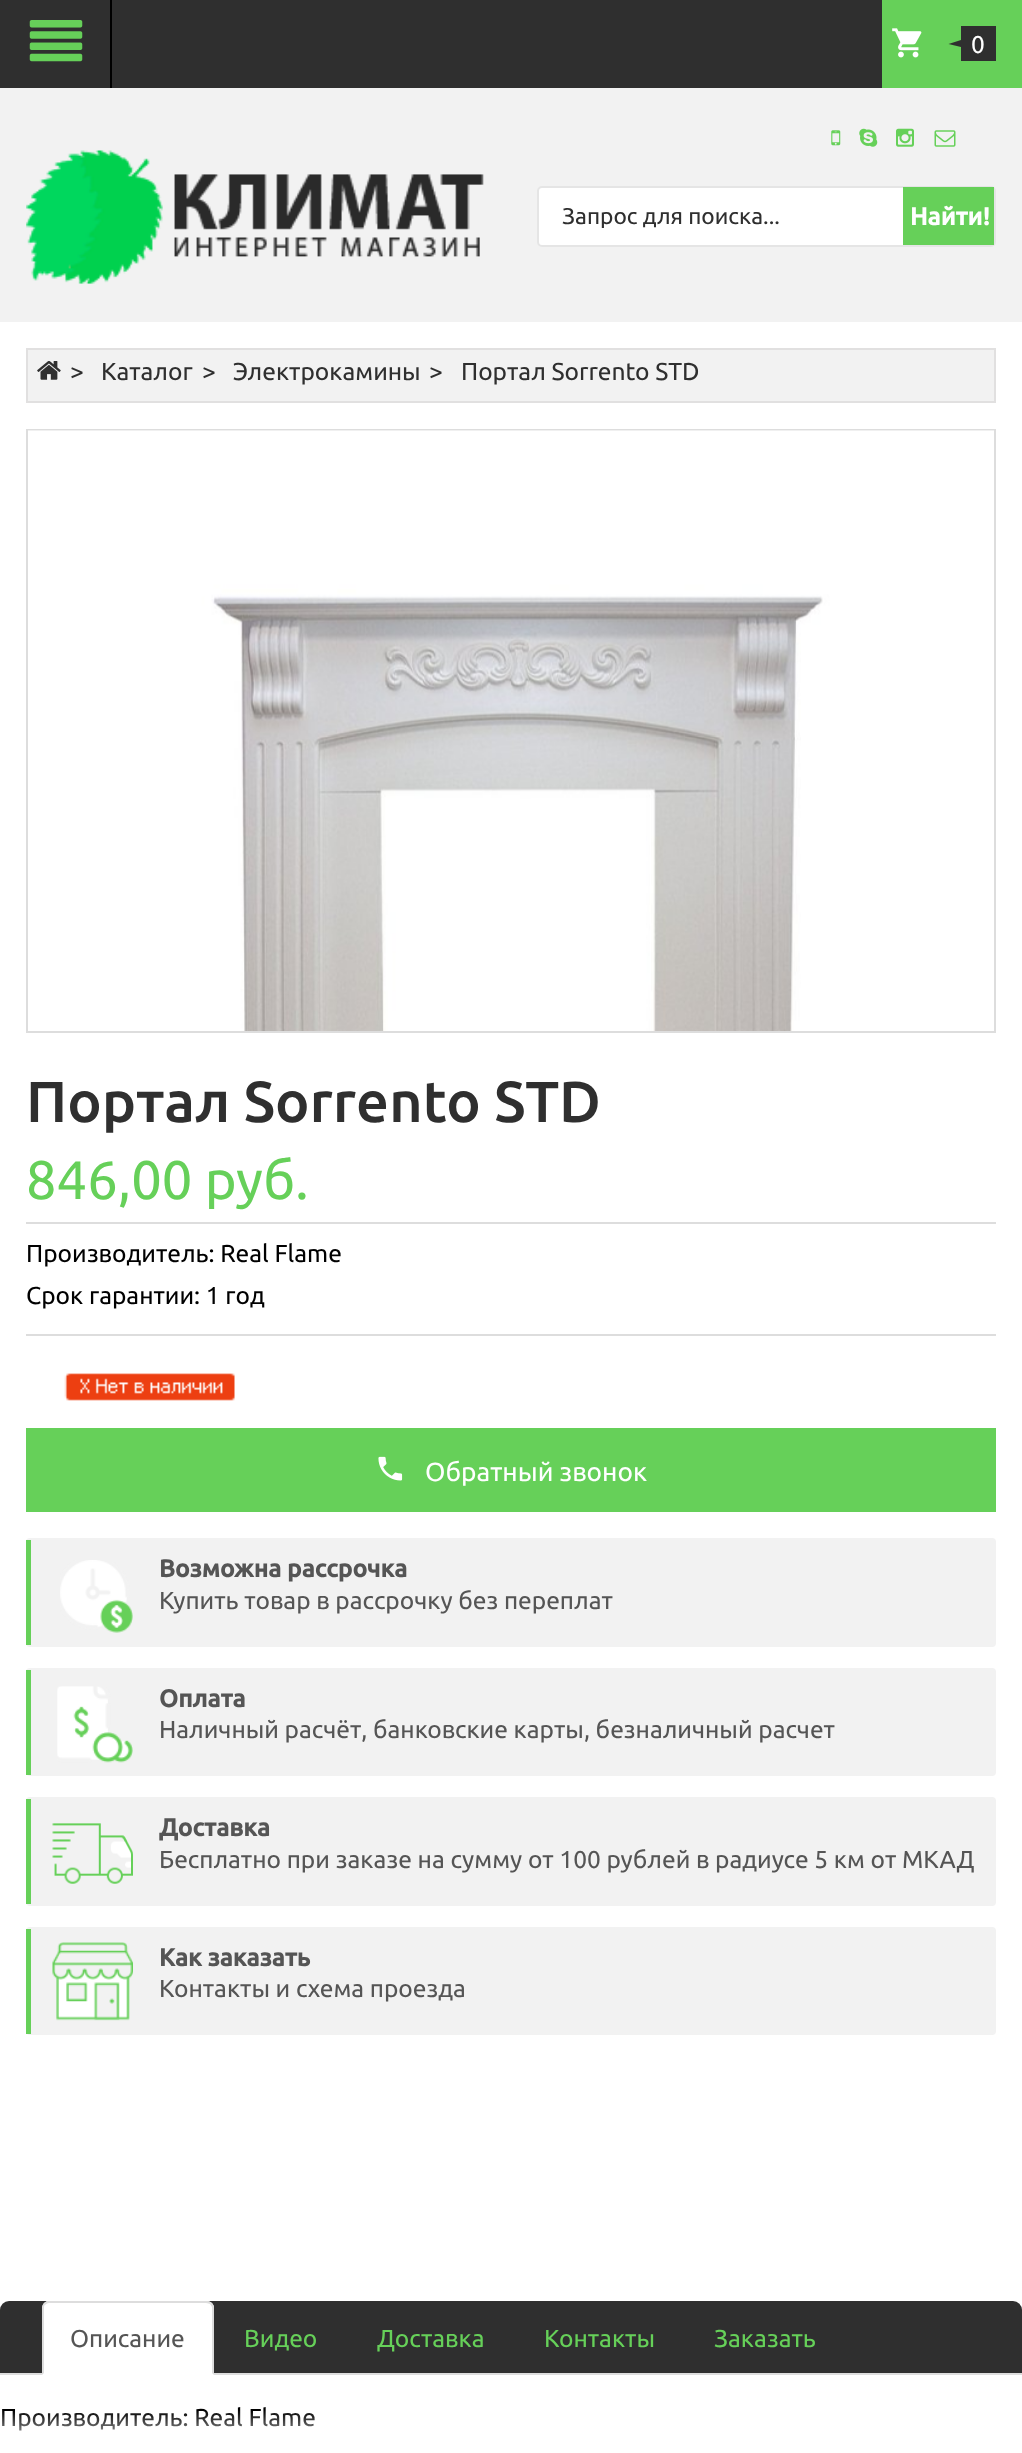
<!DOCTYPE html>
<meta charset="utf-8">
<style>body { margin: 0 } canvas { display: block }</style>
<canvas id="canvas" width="1022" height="2453"></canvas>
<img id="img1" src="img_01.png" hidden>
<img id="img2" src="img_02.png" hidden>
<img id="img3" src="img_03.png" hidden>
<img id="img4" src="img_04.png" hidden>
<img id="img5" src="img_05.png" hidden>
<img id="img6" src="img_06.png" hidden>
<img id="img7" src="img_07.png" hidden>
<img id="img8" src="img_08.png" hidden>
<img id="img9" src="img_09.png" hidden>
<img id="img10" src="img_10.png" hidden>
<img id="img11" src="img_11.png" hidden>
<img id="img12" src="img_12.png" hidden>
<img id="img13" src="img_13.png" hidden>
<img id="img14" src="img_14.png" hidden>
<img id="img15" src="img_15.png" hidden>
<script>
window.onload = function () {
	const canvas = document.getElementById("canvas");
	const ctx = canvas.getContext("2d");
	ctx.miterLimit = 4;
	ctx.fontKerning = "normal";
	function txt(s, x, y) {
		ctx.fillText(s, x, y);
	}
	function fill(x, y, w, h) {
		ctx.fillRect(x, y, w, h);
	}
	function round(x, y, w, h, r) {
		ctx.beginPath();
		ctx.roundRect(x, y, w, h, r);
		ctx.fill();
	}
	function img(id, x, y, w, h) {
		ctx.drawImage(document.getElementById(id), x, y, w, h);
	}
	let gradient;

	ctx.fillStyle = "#FFFFFF";
	fill(0, 0, 1022, 2453);
	ctx.fillStyle = "#2F2F2F";
	fill(0, 0, 882, 88);
	ctx.fillStyle = "#000000";
	fill(110, 0, 2, 88);
	img("img1", 29, 20, 54, 42);
	ctx.fillStyle = "#F2F2F2";
	fill(0, 88, 1022, 234);
	ctx.fillStyle = "#66D059";
	fill(882, 0, 140, 88);
	img("img2", 892, 28, 30, 30);
	ctx.fillStyle = "#2F2F2F";
	fill(961, 26, 35, 35);
	ctx.beginPath();
	ctx.moveTo(961, 40);
	ctx.lineTo(961, 47);
	ctx.lineTo(948.5, 44);
	ctx.closePath();
	ctx.fill();
	img("img3", 831, 130, 10, 16);
	img("img4", 859, 128, 19, 19);
	img("img5", 896, 128, 18, 19);
	img("img6", 934, 130, 22, 17);
	img("img7", 26, 150, 458, 134);
	ctx.fillStyle = "#FFFFFF";
	ctx.beginPath();
	ctx.roundRect(538, 187, 457, 59, 4);
	ctx.fill();
	ctx.strokeStyle = "#E5E5E5";
	ctx.lineWidth = 2;
	ctx.stroke();
	ctx.fillStyle = "#66D059";
	fill(903, 187, 91, 58);
	ctx.fillStyle = "#F2F2F2";
	ctx.beginPath();
	ctx.rect(27, 349, 968, 53);
	ctx.fill();
	ctx.strokeStyle = "#E1E0E0";
	ctx.stroke();
	img("img8", 37, 361, 24, 19);
	ctx.strokeStyle = "#DDDDDD";
	ctx.strokeRect(27, 430, 968, 602);
	img("img9", 28, 430, 966, 601);
	ctx.fillStyle = "#DDDDDD";
	fill(26, 1222, 970, 2);
	fill(26, 1334, 970, 2);
	img("img10", 64, 1373, 171, 28);
	ctx.fillStyle = "#66D059";
	fill(26, 1428, 970, 84);
	img("img11", 378, 1456, 25, 25);
	ctx.fillStyle = "#F2F2F2";
	round(26, 1538, 970, 109, 4);
	ctx.fillStyle = "#66D059";
	fill(26, 1540, 5, 105);
	img("img12", 60, 1560, 73, 73);
	ctx.fillStyle = "#F2F2F2";
	round(26, 1668, 970, 108, 4);
	ctx.fillStyle = "#66D059";
	fill(26, 1670, 5, 105);
	img("img13", 57, 1686, 76, 77);
	ctx.fillStyle = "#F2F2F2";
	round(26, 1797, 970, 109, 4);
	ctx.fillStyle = "#66D059";
	fill(26, 1799, 5, 105);
	img("img14", 52, 1823, 81, 61);
	ctx.fillStyle = "#F2F2F2";
	round(26, 1927, 970, 108, 4);
	ctx.fillStyle = "#66D059";
	fill(26, 1929, 5, 105);
	img("img15", 52, 1942, 81, 79);
	ctx.fillStyle = "#2F2F2F";
	ctx.beginPath();
	ctx.roundRect(0, 2301, 1022, 74, [9, 9, 0, 0]);
	ctx.fill();
	ctx.fillStyle = "#DDDDDD";
	fill(0, 2373, 1022, 2);
	ctx.fillStyle = "#FFFFFF";
	ctx.beginPath();
	ctx.roundRect(42, 2301, 172, 74, [7, 7, 0, 0]);
	ctx.fill();
	ctx.fillStyle = "#DDDDDD";
	ctx.beginPath();
	ctx.moveTo(49, 2303);
	ctx.bezierCurveTo(47, 2303, 46, 2304, 45, 2305);
	ctx.lineTo(44, 2303);
	ctx.lineTo(47, 2301);
	ctx.lineTo(208, 2301);
	ctx.lineTo(212, 2303);
	ctx.lineTo(210, 2304);
	ctx.bezierCurveTo(209, 2304, 208, 2303, 206, 2303);
	ctx.closePath();
	ctx.fill();
	ctx.beginPath();
	ctx.moveTo(212, 2303);
	ctx.lineTo(214, 2306);
	ctx.lineTo(214, 2375);
	ctx.lineTo(212, 2373);
	ctx.lineTo(212, 2307);
	ctx.lineTo(210, 2304);
	ctx.closePath();
	ctx.fill();
	ctx.beginPath();
	ctx.moveTo(42, 2375);
	ctx.lineTo(44, 2373);
	ctx.lineTo(44, 2308);
	ctx.bezierCurveTo(44, 2307, 44, 2305, 45, 2305);
	ctx.lineTo(44, 2303);
	ctx.bezierCurveTo(43, 2304, 42, 2306, 42, 2308);
	ctx.closePath();
	ctx.fill();
	ctx.font = "24.5px Ubuntu";
	ctx.fillStyle = "#FFFFFF";
	txt("0", 971, 53);
	ctx.save();
	ctx.beginPath();
	ctx.rect(562, 203, 266, 25);
	ctx.clip();
	ctx.font = "22.75px Ubuntu";
	ctx.fillStyle = "#2F2F2F";
	txt("Запрос для поиска...", 562, 224);
	ctx.restore();
	ctx.font = "bold 24.5px Ubuntu";
	txt("Найти!", 910, 225);
	ctx.font = "24.5px Ubuntu";
	ctx.fillStyle = "#2F2F2F";
	txt(">", 70, 380);
	txt("Каталог", 101, 380);
	txt(">", 202, 380);
	txt("Электрокамины", 233, 380);
	txt(">", 429, 380);
	txt("Портал Sorrento STD", 461, 380);
	ctx.font = "500 57.75px Ubuntu";
	txt("Портал Sorrento STD", 26, 1122);
	ctx.font = "54.25px Ubuntu";
	ctx.fillStyle = "#66D059";
	txt("846,00 руб.", 26, 1199);
	ctx.font = "24.5px Ubuntu";
	ctx.fillStyle = "#000000";
	txt("Производитель: Real Flame", 26, 1262);
	txt("Срок гарантии: 1 год", 26, 1304);
	ctx.font = "26.25px Ubuntu";
	ctx.fillStyle = "#FFFFFF";
	txt("Обратный звонок", 425, 1481);
	ctx.font = "bold 24.5px Ubuntu";
	ctx.fillStyle = "#555555";
	txt("Возможна рассрочка", 159, 1577);
	ctx.font = "24.5px Ubuntu";
	txt("Купить товар в рассрочку без переплат", 159, 1609);
	ctx.font = "bold 24.5px Ubuntu";
	txt("Оплата", 159, 1707);
	ctx.font = "24.5px Ubuntu";
	txt("Наличный расчёт, банковские карты, безналичный расчет", 159, 1738);
	ctx.font = "bold 24.5px Ubuntu";
	txt("Доставка", 159, 1836);
	ctx.font = "24.5px Ubuntu";
	txt("Бесплатно при заказе на сумму от 100 рублей в радиусе 5 км от МКАД", 159, 1868);
	ctx.font = "bold 24.5px Ubuntu";
	txt("Как заказать", 159, 1966);
	ctx.font = "24.5px Ubuntu";
	txt("Контакты и схема проезда", 159, 1997);
	txt("Описание", 70, 2347);
	ctx.fillStyle = "#66D059";
	txt("Видео", 244, 2347);
	txt("Доставка", 377, 2347);
	txt("Контакты", 544, 2347);
	txt("Заказать", 714, 2347);
	ctx.fillStyle = "#000000";
	txt("Производитель: Real Flame", 0, 2426);
	gradient = ctx.createLinearGradient(511, 2410, 511, 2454);
	gradient.addColorStop(0, "rgba(255, 255, 255, 0)");
	gradient.addColorStop(1, "#FFFFFF");
	ctx.fillStyle = gradient;
	fill(2, 2411, 313, 20);
};
</script>
